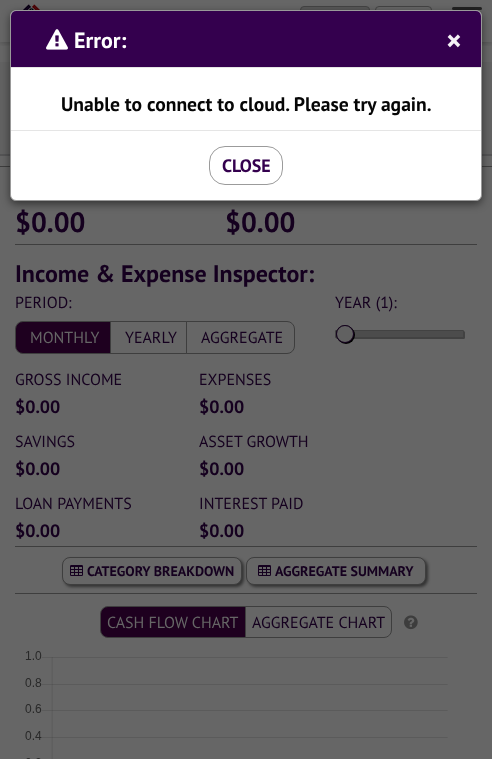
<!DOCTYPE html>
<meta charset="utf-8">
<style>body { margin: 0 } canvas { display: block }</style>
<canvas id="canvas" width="492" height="759"></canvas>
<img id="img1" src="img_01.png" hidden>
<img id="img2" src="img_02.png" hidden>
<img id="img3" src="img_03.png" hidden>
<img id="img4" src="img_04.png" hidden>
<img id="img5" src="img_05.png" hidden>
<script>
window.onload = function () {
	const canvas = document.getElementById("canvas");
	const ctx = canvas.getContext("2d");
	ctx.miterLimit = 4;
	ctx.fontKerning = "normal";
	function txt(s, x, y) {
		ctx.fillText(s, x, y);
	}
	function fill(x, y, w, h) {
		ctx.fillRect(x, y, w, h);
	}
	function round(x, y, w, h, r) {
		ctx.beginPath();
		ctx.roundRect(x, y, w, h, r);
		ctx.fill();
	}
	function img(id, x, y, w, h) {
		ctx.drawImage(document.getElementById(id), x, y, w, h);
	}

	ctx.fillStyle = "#666666";
	fill(0, 0, 492, 759);
	ctx.save();
	ctx.beginPath();
	ctx.rect(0, 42, 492, 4);
	ctx.clip();
	ctx.fillStyle = "rgba(0, 0, 0, 0.15)";
	ctx.filter = "blur(2px)";
	ctx.beginPath();
	ctx.rect(0, 2, 492, 42);
	ctx.fill();
	ctx.filter = "none";
	ctx.restore();
	img("img1", 14, 4, 35, 8);
	ctx.fillStyle = "#585858";
	ctx.beginPath();
	ctx.roundRect(300.5, 6.5, 69, 27, 3.5);
	ctx.fill();
	ctx.strokeStyle = "#444444";
	ctx.stroke();
	ctx.beginPath();
	ctx.roundRect(375.5, 6.5, 56, 27, 3.5);
	ctx.stroke();
	ctx.fillStyle = "#222222";
	round(452, 7, 30, 3, 1.5);
	ctx.fillStyle = "#626262";
	fill(0, 62, 492, 92);
	ctx.fillStyle = "#545455";
	fill(0, 154, 492, 2);
	ctx.fillStyle = "#3E3E3E";
	fill(0, 166, 492, 1);
	ctx.fillStyle = "rgba(0, 0, 0, 0.5)";
	ctx.filter = "blur(4.5px)";
	ctx.beginPath();
	ctx.roundRect(10, 13, 472, 191, 6);
	ctx.fill();
	ctx.filter = "none";
	ctx.fillStyle = "#FFFFFF";
	ctx.beginPath();
	ctx.roundRect(10.5, 10.5, 471, 190, 5.5);
	ctx.fill();
	ctx.strokeStyle = "#999999";
	ctx.stroke();
	ctx.fillStyle = "#34004E";
	ctx.beginPath();
	ctx.roundRect(11, 11, 470, 57, [5, 5, 0, 0]);
	ctx.fill();
	ctx.fillStyle = "#E5E5E5";
	fill(11, 67, 470, 1);
	img("img2", 46, 29, 22, 21);
	fill(11, 130, 470, 1);
	ctx.beginPath();
	ctx.roundRect(209.5, 146.5, 73, 38, 15.5);
	ctx.strokeStyle = "#9B9B9B";
	ctx.stroke();
	ctx.fillStyle = "#3E3E3E";
	fill(15, 244, 462, 1);
	ctx.fillStyle = "#1E001F";
	ctx.beginPath();
	ctx.roundRect(15.5, 321.5, 95, 32, [7.5, 0, 0, 7.5]);
	ctx.fill();
	ctx.strokeStyle = "#3E3E3E";
	ctx.stroke();
	ctx.strokeRect(110.5, 321.5, 76, 32);
	ctx.fillStyle = "#666666";
	ctx.beginPath();
	ctx.roundRect(186.5, 321.5, 108, 32, [0, 7.5, 7.5, 0]);
	ctx.fill();
	ctx.stroke();
	ctx.fillStyle = "#424242";
	ctx.filter = "blur(0.5px)";
	ctx.beginPath();
	ctx.roundRect(335, 330, 129, 8, 1.5);
	ctx.fill();
	ctx.filter = "none";
	ctx.filter = "blur(0.5px)";
	ctx.beginPath();
	ctx.roundRect(336, 331, 129, 8, 1.5);
	ctx.fill();
	ctx.filter = "none";
	ctx.fillStyle = "#4C4C4C";
	ctx.beginPath();
	ctx.roundRect(335.5, 330.5, 128, 7, 1);
	ctx.fill();
	ctx.strokeStyle = "#424242";
	ctx.stroke();
	ctx.fillStyle = "#050505";
	ctx.filter = "blur(0.5px)";
	ctx.beginPath();
	ctx.roundRect(336, 325, 18, 18, 9);
	ctx.fill();
	ctx.filter = "none";
	ctx.fillStyle = "#000000";
	ctx.filter = "blur(0.5px)";
	ctx.beginPath();
	ctx.roundRect(337, 326, 18, 18, 9);
	ctx.fill();
	ctx.filter = "none";
	ctx.fillStyle = "#616161";
	ctx.beginPath();
	ctx.arc(345, 334, 8.5, 0, Math.PI * 2);
	ctx.fill();
	ctx.strokeStyle = "#15001F";
	ctx.stroke();
	ctx.fillStyle = "#3E3E3E";
	fill(15, 546, 462, 1);
	fill(15, 593, 462, 1);
	ctx.fillStyle = "rgba(0, 0, 0, 0.5)";
	ctx.filter = "blur(1.5px)";
	ctx.beginPath();
	ctx.roundRect(64, 559, 180, 28, 8);
	ctx.fill();
	ctx.filter = "none";
	ctx.fillStyle = "#666666";
	ctx.beginPath();
	ctx.roundRect(62.5, 557.5, 179, 27, 7.5);
	ctx.fill();
	ctx.strokeStyle = "#3E3E3E";
	ctx.stroke();
	img("img3", 70, 565, 13, 11);
	ctx.fillStyle = "rgba(0, 0, 0, 0.5)";
	ctx.filter = "blur(1.5px)";
	ctx.beginPath();
	ctx.roundRect(248, 559, 180, 28, 8);
	ctx.fill();
	ctx.filter = "none";
	ctx.fillStyle = "#666666";
	ctx.beginPath();
	ctx.roundRect(246.5, 557.5, 179, 27, 7.5);
	ctx.fill();
	ctx.stroke();
	img("img3", 258, 565, 13, 11);
	ctx.fillStyle = "#1E001F";
	ctx.beginPath();
	ctx.roundRect(100.5, 606.5, 145, 31, [7.5, 0, 0, 7.5]);
	ctx.fill();
	ctx.stroke();
	ctx.fillStyle = "#666666";
	ctx.beginPath();
	ctx.roundRect(245.5, 606.5, 146, 31, [0, 7.5, 7.5, 0]);
	ctx.fill();
	ctx.stroke();
	img("img4", 404, 615, 14, 15);
	img("img5", 25, 651, 423, 108);
	ctx.font = "bold 22px PT Sans";
	ctx.fillStyle = "#FFFFFF";
	txt("Error:", 74, 48);
	ctx.font = "bold 30px PT Sans";
	ctx.fillStyle = "#F5F2F6";
	txt("×", 446, 51);
	ctx.font = "bold 19.6px PT Sans";
	ctx.fillStyle = "#060606";
	txt("Unable to connect to cloud. Please try again.", 61, 111);
	ctx.font = "bold 18px PT Sans";
	ctx.fillStyle = "#34004E";
	txt("CLOSE", 222, 172);
	ctx.font = "bold 28px PT Sans";
	ctx.fillStyle = "#15001F";
	txt("$0.00", 15, 232);
	txt("$0.00", 225, 232);
	ctx.font = "bold 24px PT Sans";
	txt("Income & Expense Inspector:", 15, 282);
	ctx.font = "16px PT Sans";
	txt("PERIOD:", 15, 308);
	ctx.fillStyle = "#666666";
	txt("MONTHLY", 30, 343);
	ctx.fillStyle = "#15001F";
	txt("YEARLY", 125, 343);
	txt("AGGREGATE", 201, 343);
	txt("YEAR (1):", 335, 308);
	txt("GROSS INCOME", 15, 385);
	ctx.font = "bold 18px PT Sans";
	txt("$0.00", 15, 413);
	ctx.font = "16px PT Sans";
	txt("EXPENSES", 199, 385);
	ctx.font = "bold 18px PT Sans";
	txt("$0.00", 199, 413);
	ctx.font = "16px PT Sans";
	txt("SAVINGS", 15, 447);
	ctx.font = "bold 18px PT Sans";
	txt("$0.00", 15, 475);
	ctx.font = "16px PT Sans";
	txt("ASSET GROWTH", 199, 447);
	ctx.font = "bold 18px PT Sans";
	txt("$0.00", 199, 475);
	ctx.font = "16px PT Sans";
	txt("LOAN PAYMENTS", 15, 509);
	ctx.font = "bold 18px PT Sans";
	txt("$0.00", 15, 537);
	ctx.font = "16px PT Sans";
	txt("INTEREST PAID", 199, 509);
	ctx.font = "bold 18px PT Sans";
	txt("$0.00", 199, 537);
	ctx.font = "bold 14px PT Sans";
	txt("CATEGORY BREAKDOWN", 87, 576);
	txt("AGGREGATE SUMMARY", 275, 576);
	ctx.font = "16px PT Sans";
	ctx.fillStyle = "#666666";
	txt("CASH FLOW CHART", 107, 628);
	ctx.fillStyle = "#15001F";
	txt("AGGREGATE CHART", 252, 628);
};
</script>
